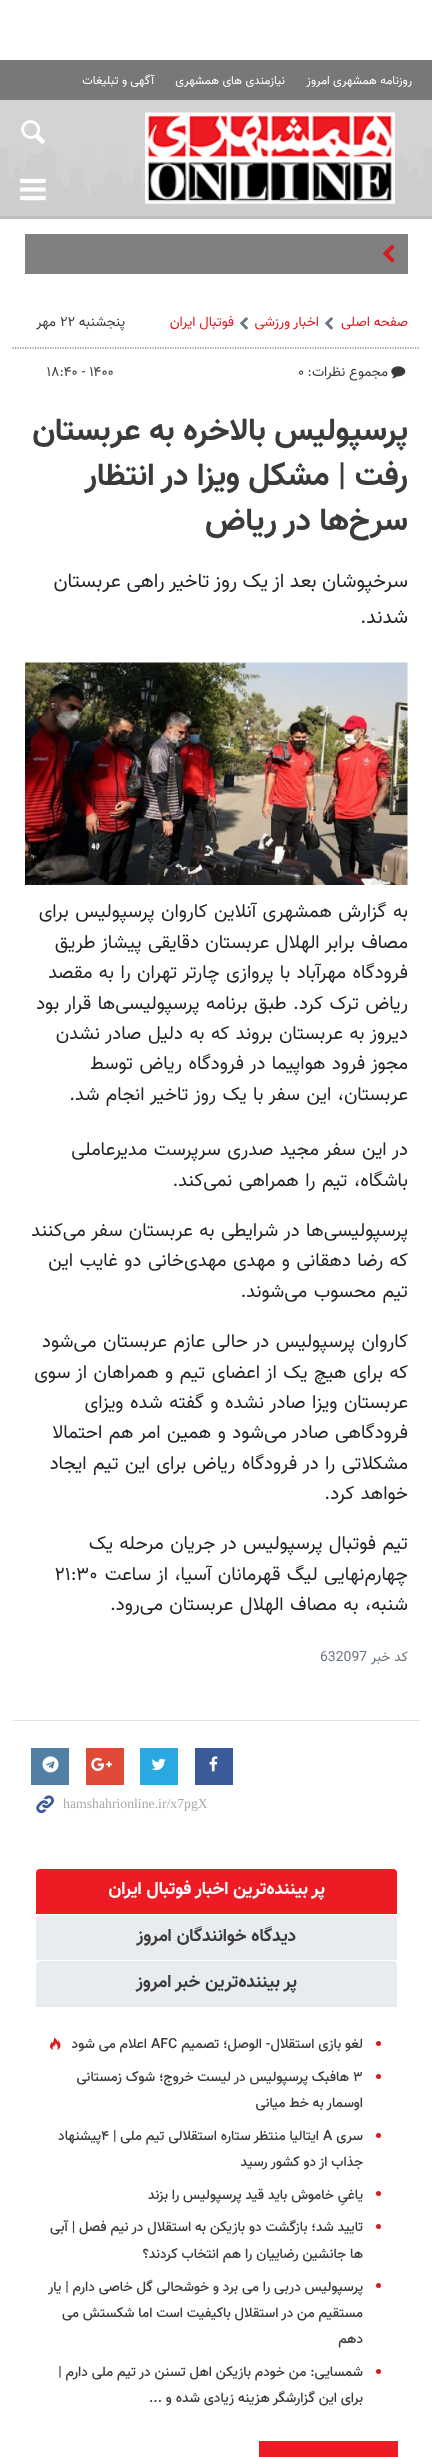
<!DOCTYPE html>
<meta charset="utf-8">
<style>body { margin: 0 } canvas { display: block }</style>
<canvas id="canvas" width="432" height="2457"></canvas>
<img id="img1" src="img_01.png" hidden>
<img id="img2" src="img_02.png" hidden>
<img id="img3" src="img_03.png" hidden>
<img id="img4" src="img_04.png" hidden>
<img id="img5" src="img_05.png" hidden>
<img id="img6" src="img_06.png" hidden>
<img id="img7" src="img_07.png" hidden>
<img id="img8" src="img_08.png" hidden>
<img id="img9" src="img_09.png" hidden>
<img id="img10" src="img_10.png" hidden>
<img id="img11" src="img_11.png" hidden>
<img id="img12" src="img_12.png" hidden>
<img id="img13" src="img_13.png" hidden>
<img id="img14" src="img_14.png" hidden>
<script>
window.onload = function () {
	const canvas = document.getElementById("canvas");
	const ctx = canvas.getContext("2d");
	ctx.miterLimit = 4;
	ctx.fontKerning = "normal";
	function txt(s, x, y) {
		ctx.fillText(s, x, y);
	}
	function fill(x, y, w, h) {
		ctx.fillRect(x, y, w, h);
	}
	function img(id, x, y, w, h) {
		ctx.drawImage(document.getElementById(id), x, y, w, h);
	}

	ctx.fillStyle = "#FFFFFF";
	fill(0, 0, 432, 2457);
	ctx.fillStyle = "#D3D3D3";
	fill(0, 100, 432, 116);
	img("img1", 0, 148, 432, 68);
	ctx.fillStyle = "#BEBEBE";
	fill(0, 216, 432, 3);
	ctx.fillStyle = "#787878";
	fill(0, 60, 432, 40);
	img("img2", 145, 112, 250, 92);
	img("img3", 21, 120, 24, 24);
	img("img4", 20, 178, 26, 23);
	ctx.fillStyle = "#808080";
	fill(25, 234, 383, 40);
	img("img5", 383, 244, 12, 19);
	img("img6", 325, 317, 8, 13);
	img("img6", 240, 317, 8, 13);
	img("img7", 391, 366, 15, 13);
	ctx.beginPath();
	ctx.moveTo(12.5, 348);
	ctx.lineTo(420, 348);
	ctx.strokeStyle = "#555555";
	ctx.lineWidth = 1.2;
	ctx.setLineDash([1.25, 1.25]);
	ctx.stroke();
	img("img8", 25, 662, 383, 223);
	ctx.fillStyle = "#DEE2E6";
	fill(13, 1720, 407, 1);
	ctx.fillStyle = "#3B5A9A";
	fill(195, 1748, 38, 37);
	img("img9", 209, 1756, 9, 16);
	ctx.fillStyle = "#28A9E2";
	fill(140, 1748, 38, 37);
	img("img10", 151, 1758, 15, 13);
	ctx.fillStyle = "#E04A39";
	fill(86, 1748, 38, 37);
	img("img11", 91, 1757, 21, 14);
	ctx.fillStyle = "#5280A4";
	fill(31, 1748, 38, 37);
	img("img12", 42, 1756, 17, 17);
	img("img13", 36, 1795, 18, 19);
	ctx.fillStyle = "#ED1B24";
	ctx.beginPath();
	ctx.roundRect(35.5, 1868.5, 362, 46, [4.5, 4.5, 0, 0]);
	ctx.fill();
	ctx.strokeStyle = "#FFFFFF";
	ctx.lineWidth = 1;
	ctx.setLineDash([]);
	ctx.stroke();
	ctx.fillStyle = "#E9ECEF";
	ctx.beginPath();
	ctx.roundRect(35.5, 1914.5, 362, 46, [4.5, 4.5, 0, 0]);
	ctx.fill();
	ctx.stroke();
	ctx.beginPath();
	ctx.roundRect(35.5, 1960.5, 362, 47, [4.5, 4.5, 0, 0]);
	ctx.fill();
	ctx.stroke();
	ctx.fillStyle = "#D81920";
	ctx.beginPath();
	ctx.arc(378.5, 2043.5, 2.5, 0, Math.PI * 2);
	ctx.fill();
	img("img14", 50, 2037, 11, 13);
	ctx.beginPath();
	ctx.arc(378.5, 2076.5, 2.5, 0, Math.PI * 2);
	ctx.fill();
	ctx.beginPath();
	ctx.arc(378.5, 2135.5, 2.5, 0, Math.PI * 2);
	ctx.fill();
	ctx.beginPath();
	ctx.arc(378.5, 2193.5, 2.5, 0, Math.PI * 2);
	ctx.fill();
	ctx.beginPath();
	ctx.arc(378.5, 2226.5, 2.5, 0, Math.PI * 2);
	ctx.fill();
	ctx.beginPath();
	ctx.arc(378.5, 2285.5, 2.5, 0, Math.PI * 2);
	ctx.fill();
	ctx.beginPath();
	ctx.arc(378.5, 2371.5, 2.5, 0, Math.PI * 2);
	ctx.fill();
	ctx.fillStyle = "#ED1B24";
	fill(259, 2441, 139, 16);
	ctx.direction = "rtl";
	ctx.font = "12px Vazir";
	ctx.fillStyle = "#FFFFFF";
	txt("روزنامه همشهری امروز", 412, 84);
	txt("نیازمندی های همشهری", 285, 84);
	txt("آگهی و تبلیغات", 154, 84);
	ctx.font = "14px Vazir";
	ctx.fillStyle = "#D81920";
	txt("صفحه اصلی", 408, 326);
	txt("اخبار ورزشی", 319, 326);
	txt("فوتبال ايران", 234, 326);
	ctx.fillStyle = "#3B3B3B";
	txt("مجموع نظرات:", 388, 376);
	ctx.direction = "ltr";
	txt("۰", 298, 376);
	ctx.direction = "rtl";
	txt("پنجشنبه", 125, 326);
	ctx.direction = "ltr";
	txt("۲۲", 60, 326);
	ctx.direction = "rtl";
	txt("مهر", 56, 326);
	ctx.direction = "ltr";
	txt("۱۸:۴۰ - ۱۴۰۰", 47, 376);
	ctx.direction = "rtl";
	ctx.font = "bold 32px Vazir";
	txt("پرسپولیس بالاخره به عربستان", 408, 440);
	txt("رفت | مشکل ویزا در انتظار", 408, 485);
	txt("سرخ‌ها در ریاض", 408, 530);
	ctx.font = "20px Vazir";
	ctx.fillStyle = "#212529";
	txt("سرخپوشان بعد از یک روز تاخیر راهی عربستان", 408, 587);
	txt("شدند.", 408, 623);
	ctx.wordSpacing = "1.25px";
	ctx.font = "19px Vazir";
	txt("به گزارش همشهری آنلاین کاروان پرسپولیس برای", 408, 917);
	txt("مصاف برابر الهلال عربستان دقایقی پیشاز طریق", 408, 948);
	txt("فرودگاه مهرآباد با پروازی چارتر تهران را به مقصد", 408, 978);
	txt("ریاض ترک کرد. طبق برنامه پرسپولیسی‌ها قرار بود", 408, 1009);
	txt("دیروز به عربستان بروند که به دلیل صادر نشدن", 408, 1039);
	txt("مجوز فرود هواپیما در فرودگاه ریاض توسط", 408, 1069);
	txt("عربستان، این سفر با یک روز تاخیر انجام شد.", 408, 1100);
	txt("در این سفر مجید صدری سرپرست مدیرعاملی", 408, 1155);
	txt("باشگاه، تیم را همراهی نمی‌کند.", 408, 1186);
	txt("پرسپولیسی‌ها در شرایطی به عربستان سفر می‌کنند", 408, 1236);
	txt("که رضا دهقانی و مهدی‌ مهدی‌خانی دو غایب این", 408, 1266);
	txt("تیم محسوب می‌شوند.", 408, 1297);
	txt("کاروان پرسپولیس در حالی عازم عربستان می‌شود", 408, 1347);
	txt("که برای هیچ یک از اعضای تیم و همراهان از سوی", 408, 1378);
	txt("عربستان ویزا صادر نشده و گفته شده ویزای", 408, 1408);
	txt("فرودگاهی صادر می‌شود و همین امر هم احتمالا", 408, 1438);
	txt("مشکلاتی را در فرودگاه ریاض برای این تیم ایجاد", 408, 1469);
	txt("خواهد کرد.", 408, 1499);
	txt("تیم فوتبال پرسپولیس در جریان مرحله یک", 408, 1549);
	txt("چهارم‌نهایی لیگ قهرمانان آسیا، از ساعت", 408, 1580);
	ctx.wordSpacing = "0px";
	ctx.direction = "ltr";
	txt("۲۱:۳۰", 55, 1580);
	ctx.wordSpacing = "1.25px";
	ctx.direction = "rtl";
	txt("شنبه، به مصاف الهلال عربستان می‌رود.", 408, 1610);
	ctx.wordSpacing = "0px";
	ctx.font = "14px Vazir";
	ctx.fillStyle = "#6C757D";
	txt("کد خبر", 408, 1661);
	ctx.direction = "ltr";
	txt("632097", 320, 1661);
	ctx.font = "13.75px Liberation Serif";
	ctx.fillStyle = "#A9A9A9";
	txt("hamshahrionline.ir/x7pgX", 63, 1808);
	ctx.direction = "rtl";
	ctx.font = "bold 18px Vazir";
	ctx.fillStyle = "#FFFFFF";
	txt("پر بیننده‌ترین اخبار فوتبال ايران", 325, 1894);
	ctx.fillStyle = "#3B3B3B";
	txt("دیدگاه خوانندگان امروز", 296, 1941);
	txt("پر بیننده‌ترین خبر امروز", 297, 1987);
	ctx.font = "500 14px Vazir";
	txt("لغو بازی استقلال- الوصل؛ تصمیم", 363, 2048);
	ctx.direction = "ltr";
	txt("AFC", 151, 2048);
	ctx.direction = "rtl";
	txt("اعلام می شود", 147, 2048);
	ctx.direction = "ltr";
	txt("۳", 353, 2081);
	ctx.direction = "rtl";
	txt("هافبک پرسپولیس در لیست خروج؛ شوک زمستانی", 349, 2081);
	txt("اوسمار به خط میانی", 363, 2107);
	txt("سری", 363, 2140);
	ctx.direction = "ltr";
	txt("A", 323, 2140);
	ctx.direction = "rtl";
	txt("ایتالیا منتظر ستاره استقلالی تیم ملی |", 319, 2140);
	ctx.direction = "ltr";
	txt("۴", 101, 2140);
	ctx.direction = "rtl";
	txt("پیشنهاد", 101, 2140);
	txt("جذاب از دو کشور رسید", 363, 2166);
	txt("یاغیِ خاموش باید قید پرسپولیس را بزند", 363, 2199);
	txt("تایید شد؛ بازگشت دو بازیکن به استقلال در نیم فصل | آبی", 363, 2231);
	txt("ها جانشین رضاییان را هم انتخاب کردند؟", 363, 2258);
	txt("پرسپولیس دربی را می برد و خوشحالی گل خاصی دارم | یار", 363, 2291);
	txt("مستقیم من در استقلال باکیفیت است اما شکستش می", 363, 2317);
	txt("دهم", 363, 2343);
	txt("شمسایی: من خودم بازیکن اهل تسنن در تیم ملی دارم |", 363, 2376);
	txt("برای این گزارشگر هزینه زیادی شده و ...", 363, 2402);
};
</script>
